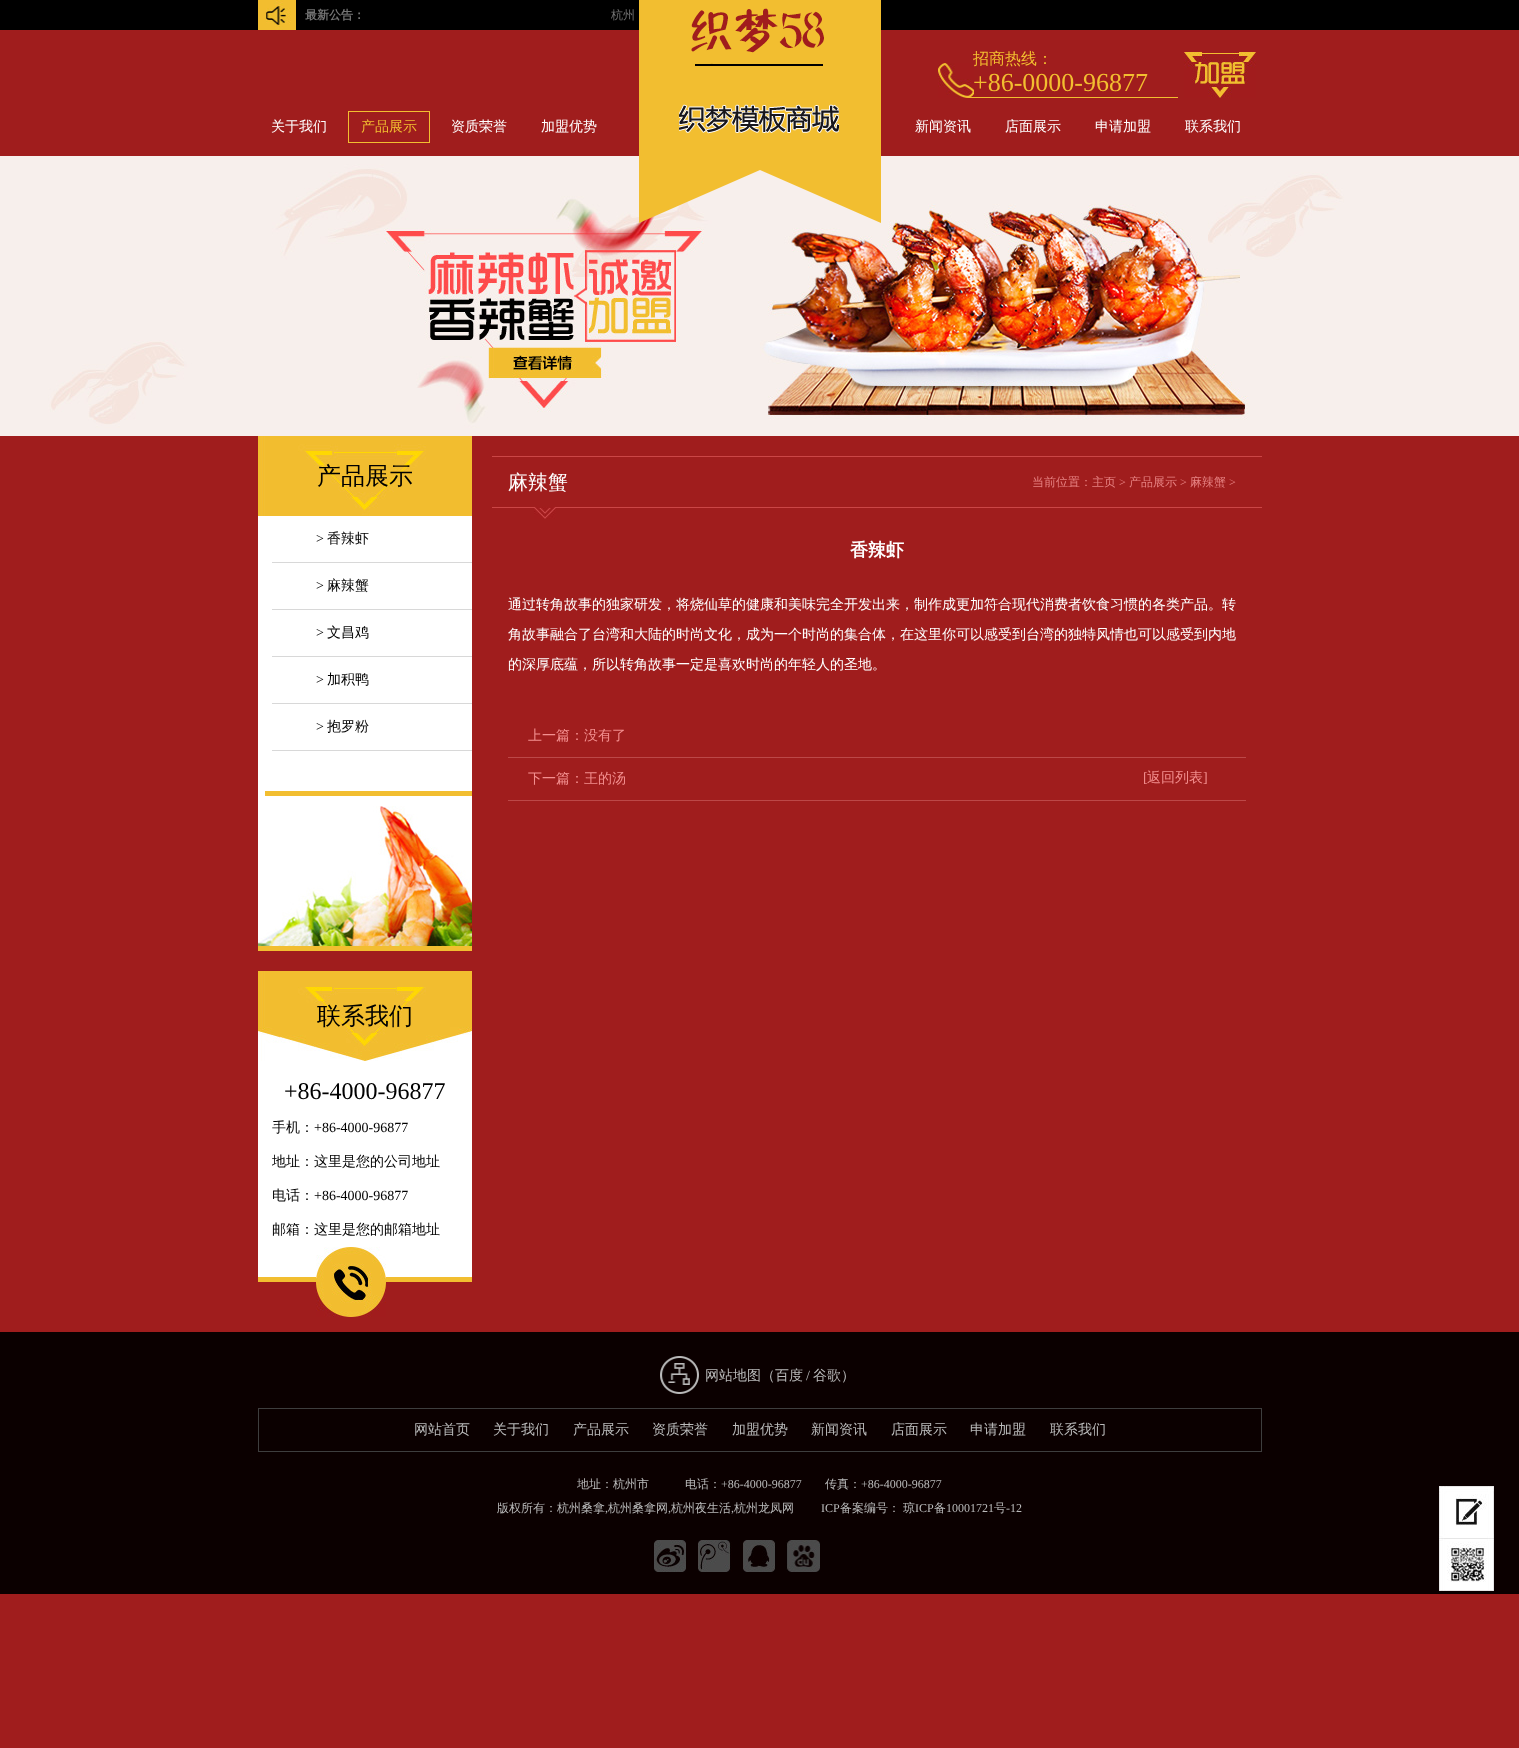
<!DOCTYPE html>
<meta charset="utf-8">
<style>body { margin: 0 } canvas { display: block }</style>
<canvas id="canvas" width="1519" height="1748"></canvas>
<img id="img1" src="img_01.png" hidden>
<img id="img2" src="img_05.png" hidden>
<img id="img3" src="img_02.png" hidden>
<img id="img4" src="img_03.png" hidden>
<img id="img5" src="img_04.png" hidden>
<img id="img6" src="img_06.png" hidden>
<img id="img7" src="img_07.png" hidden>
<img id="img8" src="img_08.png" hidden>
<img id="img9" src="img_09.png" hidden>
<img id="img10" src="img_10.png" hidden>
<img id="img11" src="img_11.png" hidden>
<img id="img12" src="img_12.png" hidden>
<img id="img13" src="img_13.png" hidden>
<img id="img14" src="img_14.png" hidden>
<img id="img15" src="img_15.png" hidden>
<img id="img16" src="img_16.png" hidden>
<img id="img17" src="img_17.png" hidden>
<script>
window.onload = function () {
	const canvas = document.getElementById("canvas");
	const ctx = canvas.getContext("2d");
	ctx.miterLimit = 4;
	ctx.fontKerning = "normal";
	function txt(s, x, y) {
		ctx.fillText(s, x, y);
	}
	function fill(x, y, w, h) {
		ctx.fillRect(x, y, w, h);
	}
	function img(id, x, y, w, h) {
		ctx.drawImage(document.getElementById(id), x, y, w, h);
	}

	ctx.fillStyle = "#A01D1D";
	fill(0, 0, 1519, 1748);
	ctx.fillStyle = "#000000";
	fill(0, 0, 1519, 30);
	img("img1", 258, 0, 38, 30);
	img("img2", 0, 156, 1519, 280);
	img("img3", 639, 0, 242, 223);
	img("img4", 938, 63, 36, 35);
	ctx.fillStyle = "#F2BE30";
	fill(973, 97, 205, 1);
	img("img5", 1184, 52, 72, 46);
	ctx.strokeStyle = "#F2BE30";
	ctx.strokeRect(348.5, 111.5, 81, 31);
	img("img6", 258, 436, 214, 80);
	ctx.fillStyle = "#FFFFFF";
	fill(258, 516, 214, 290);
	img("img7", 258, 806, 214, 140);
	ctx.fillStyle = "#F2BE30";
	fill(258, 946, 214, 5);
	fill(265, 791, 207, 5);
	ctx.fillStyle = "#D8D8D8";
	fill(272, 562, 200, 1);
	fill(272, 609, 200, 1);
	fill(272, 656, 200, 1);
	fill(272, 703, 200, 1);
	fill(272, 750, 200, 1);
	img("img8", 258, 971, 214, 90);
	ctx.fillStyle = "#FFFFFF";
	fill(258, 1061, 214, 216);
	ctx.fillStyle = "#F2BE30";
	fill(258, 1277, 214, 5);
	img("img9", 316, 1247, 70, 70);
	ctx.fillStyle = "#CB4646";
	fill(492, 456, 770, 1);
	fill(492, 507, 770, 1);
	img("img10", 534, 507, 22, 12);
	ctx.fillStyle = "#BC4848";
	fill(508, 757, 738, 1);
	fill(508, 800, 738, 1);
	ctx.fillStyle = "#0B0000";
	fill(0, 1332, 1519, 262);
	img("img11", 660, 1356, 39, 38);
	ctx.strokeStyle = "#3E3E3E";
	ctx.strokeRect(258.5, 1408.5, 1003, 43);
	img("img12", 654, 1540, 32, 32);
	img("img13", 698, 1540, 34, 32);
	img("img14", 743, 1540, 33, 32);
	img("img15", 786, 1540, 34, 32);
	img("img16", 1439, 1486, 55, 53);
	img("img17", 1439, 1539, 55, 52);
	ctx.font = "bold 12px WenQuanYi Zen Hei";
	ctx.fillStyle = "#747474";
	txt("最新公告：", 305, 19);
	ctx.font = "500 12px WenQuanYi Zen Hei";
	txt("杭州", 611, 19);
	ctx.font = "500 16px WenQuanYi Zen Hei";
	ctx.fillStyle = "#F2BE30";
	txt("招商热线：", 973, 64);
	ctx.font = "26px Liberation Serif";
	txt("+86-0000-96877", 973, 91);
	ctx.font = "500 14px WenQuanYi Zen Hei";
	ctx.fillStyle = "#FFFFFF";
	txt("关于我们", 271, 131);
	ctx.fillStyle = "#F2BE30";
	txt("产品展示", 361, 131);
	ctx.fillStyle = "#FFFFFF";
	txt("资质荣誉", 451, 131);
	txt("加盟优势", 541, 131);
	txt("新闻资讯", 915, 131);
	txt("店面展示", 1005, 131);
	txt("申请加盟", 1095, 131);
	txt("联系我们", 1185, 131);
	ctx.font = "500 24px WenQuanYi Zen Hei";
	ctx.fillStyle = "#000000";
	txt("产品展示", 317, 484);
	ctx.font = "14px Liberation Serif";
	txt(">", 316, 543);
	ctx.font = "500 14px WenQuanYi Zen Hei";
	txt("香辣虾", 327, 543);
	ctx.font = "14px Liberation Serif";
	txt(">", 316, 590);
	ctx.font = "500 14px WenQuanYi Zen Hei";
	txt("麻辣蟹", 327, 590);
	ctx.font = "14px Liberation Serif";
	txt(">", 316, 637);
	ctx.font = "500 14px WenQuanYi Zen Hei";
	txt("文昌鸡", 327, 637);
	ctx.font = "14px Liberation Serif";
	txt(">", 316, 684);
	ctx.font = "500 14px WenQuanYi Zen Hei";
	txt("加积鸭", 327, 684);
	ctx.font = "14px Liberation Serif";
	txt(">", 316, 731);
	ctx.font = "500 14px WenQuanYi Zen Hei";
	txt("抱罗粉", 327, 731);
	ctx.font = "500 24px WenQuanYi Zen Hei";
	txt("联系我们", 317, 1024);
	ctx.font = "24px Liberation Serif";
	txt("+86-4000-96877", 284, 1099);
	ctx.font = "500 14px WenQuanYi Zen Hei";
	txt("手机：", 272, 1132);
	ctx.font = "14px Liberation Serif";
	txt("+86-4000-96877", 314, 1132);
	ctx.font = "500 14px WenQuanYi Zen Hei";
	txt("地址：这里是您的公司地址", 272, 1166);
	txt("电话：", 272, 1200);
	ctx.font = "14px Liberation Serif";
	txt("+86-4000-96877", 314, 1200);
	ctx.font = "500 14px WenQuanYi Zen Hei";
	txt("邮箱：这里是您的邮箱地址", 272, 1234);
	ctx.font = "500 20px WenQuanYi Zen Hei";
	ctx.fillStyle = "#FFFFFF";
	txt("麻辣蟹", 508, 489);
	ctx.font = "500 12px WenQuanYi Zen Hei";
	ctx.fillStyle = "#E68282";
	txt("当前位置：主页", 1032, 486);
	ctx.font = "12px Liberation Serif";
	txt(">", 1119, 486);
	ctx.font = "500 12px WenQuanYi Zen Hei";
	txt("产品展示", 1129, 486);
	ctx.font = "12px Liberation Serif";
	txt(">", 1180, 486);
	ctx.font = "500 12px WenQuanYi Zen Hei";
	txt("麻辣蟹", 1190, 486);
	ctx.font = "12px Liberation Serif";
	txt(">", 1229, 486);
	ctx.font = "bold 18px WenQuanYi Zen Hei";
	ctx.fillStyle = "#FFFFFF";
	txt("香辣虾", 850, 556);
	ctx.font = "500 14px WenQuanYi Zen Hei";
	txt("通过转角故事的独家研发，将烧仙草的健康和美味完全开发出来，制作成更加符合现代消费者饮食习惯的各类产品。转", 508, 609);
	txt("角故事融合了台湾和大陆的时尚文化，成为一个时尚的集合体，在这里你可以感受到台湾的独特风情也可以感受到内地", 508, 639);
	txt("的深厚底蕴，所以转角故事一定是喜欢时尚的年轻人的圣地。", 508, 669);
	ctx.fillStyle = "#F38F8F";
	txt("上一篇：没有了", 528, 740);
	txt("下一篇：王的汤", 528, 783);
	ctx.font = "14px Liberation Serif";
	txt("[", 1143, 782);
	ctx.font = "500 14px WenQuanYi Zen Hei";
	txt("返回列表", 1147, 782);
	ctx.font = "14px Liberation Serif";
	txt("]", 1203, 782);
	ctx.font = "500 14px WenQuanYi Zen Hei";
	ctx.fillStyle = "#BABABA";
	txt("网站地图（百度", 705, 1380);
	ctx.font = "14px Liberation Serif";
	txt("/", 806, 1380);
	ctx.font = "500 14px WenQuanYi Zen Hei";
	txt("谷歌）", 813, 1380);
	txt("网站首页", 414, 1434);
	txt("关于我们", 493, 1434);
	txt("产品展示", 573, 1434);
	txt("资质荣誉", 652, 1434);
	txt("加盟优势", 732, 1434);
	txt("新闻资讯", 811, 1434);
	txt("店面展示", 891, 1434);
	txt("申请加盟", 970, 1434);
	txt("联系我们", 1050, 1434);
	ctx.font = "500 12px WenQuanYi Zen Hei";
	txt("地址：杭州市　　　电话：", 577, 1488);
	ctx.font = "12px Liberation Serif";
	txt("+86-4000-96877", 721, 1488);
	ctx.font = "500 12px WenQuanYi Zen Hei";
	txt("传真：", 825, 1488);
	ctx.font = "12px Liberation Serif";
	txt("+86-4000-96877", 861, 1488);
	ctx.font = "500 12px WenQuanYi Zen Hei";
	txt("版权所有：杭州桑拿", 497, 1512);
	ctx.font = "12px Liberation Serif";
	txt(",", 605, 1512);
	ctx.font = "500 12px WenQuanYi Zen Hei";
	txt("杭州桑拿网", 608, 1512);
	ctx.font = "12px Liberation Serif";
	txt(",", 668, 1512);
	ctx.font = "500 12px WenQuanYi Zen Hei";
	txt("杭州夜生活", 671, 1512);
	ctx.font = "12px Liberation Serif";
	txt(",", 731, 1512);
	ctx.font = "500 12px WenQuanYi Zen Hei";
	txt("杭州龙凤网", 734, 1512);
	ctx.font = "12px Liberation Serif";
	txt("ICP", 821, 1512);
	ctx.font = "500 12px WenQuanYi Zen Hei";
	txt("备案编号：", 840, 1512);
	txt("琼", 903, 1512);
	ctx.font = "12px Liberation Serif";
	txt("ICP", 915, 1512);
	ctx.font = "500 12px WenQuanYi Zen Hei";
	txt("备", 934, 1512);
	ctx.font = "12px Liberation Serif";
	txt("10001721", 946, 1512);
	ctx.font = "500 12px WenQuanYi Zen Hei";
	txt("号", 994, 1512);
	ctx.font = "12px Liberation Serif";
	txt("-12", 1006, 1512);
};
</script>
